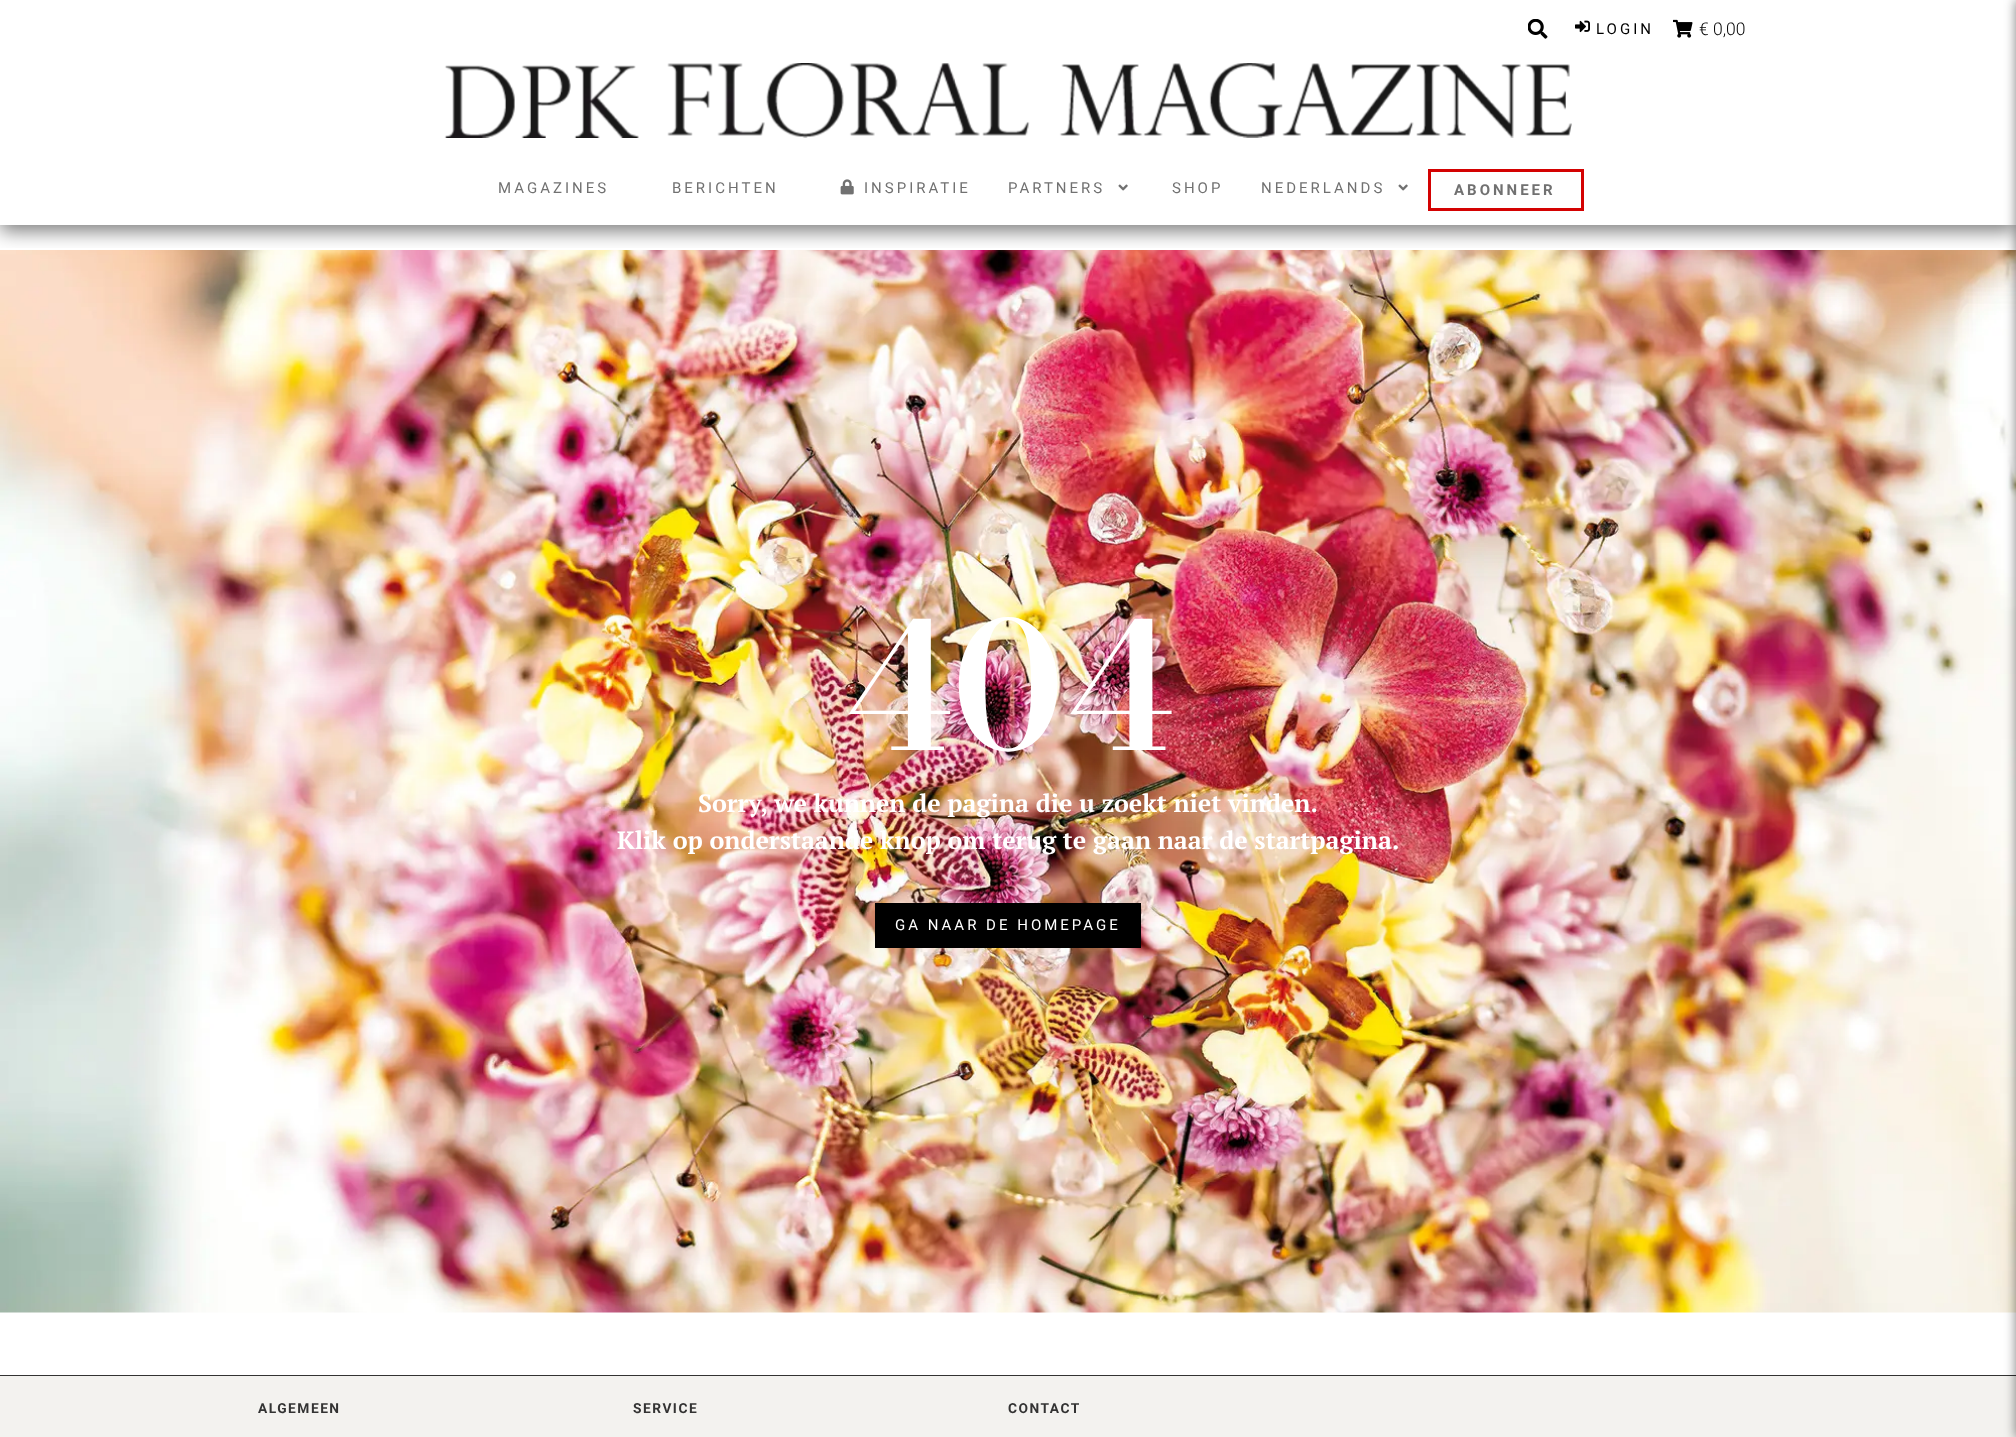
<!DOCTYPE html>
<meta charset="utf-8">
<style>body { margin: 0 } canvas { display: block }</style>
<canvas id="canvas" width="2016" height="1437"></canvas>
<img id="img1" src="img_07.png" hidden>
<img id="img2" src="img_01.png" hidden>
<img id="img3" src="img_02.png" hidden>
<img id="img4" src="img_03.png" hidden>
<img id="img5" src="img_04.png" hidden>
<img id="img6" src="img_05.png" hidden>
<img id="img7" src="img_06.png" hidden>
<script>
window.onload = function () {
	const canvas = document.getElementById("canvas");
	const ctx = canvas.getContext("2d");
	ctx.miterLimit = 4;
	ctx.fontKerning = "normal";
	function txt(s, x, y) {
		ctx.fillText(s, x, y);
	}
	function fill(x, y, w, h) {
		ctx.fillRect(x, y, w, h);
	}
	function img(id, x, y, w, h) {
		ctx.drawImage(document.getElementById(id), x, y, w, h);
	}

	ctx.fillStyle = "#FFFFFF";
	fill(0, 0, 2016, 1437);
	img("img1", 0, 250, 2016, 1063);
	ctx.save();
	ctx.beginPath();
	ctx.rect(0, 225, 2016, 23);
	ctx.clip();
	ctx.fillStyle = "rgba(0, 0, 0, 0.52)";
	ctx.filter = "blur(9.5px)";
	ctx.beginPath();
	ctx.rect(0, 6, 2016, 225);
	ctx.fill();
	ctx.filter = "none";
	ctx.restore();
	img("img2", 1528, 19, 20, 20);
	img("img3", 1575, 20, 15, 13);
	img("img4", 1673, 19, 20, 19);
	ctx.fillStyle = "#333333";
	fill(0, 1375, 2016, 1);
	ctx.fillStyle = "#F3F2EF";
	fill(0, 1376, 2016, 61);
	ctx.fillStyle = "rgba(0, 0, 0, 0.5)";
	ctx.filter = "blur(6px)";
	ctx.beginPath();
	ctx.rect(2016, 0, 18, 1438);
	ctx.fill();
	ctx.filter = "none";
	img("img5", 444, 63, 1128, 75);
	img("img6", 840, 179, 14, 16);
	img("img7", 1118, 184, 10, 7);
	img("img7", 1398, 184, 10, 7);
	ctx.strokeStyle = "#D40202";
	ctx.lineWidth = 3;
	ctx.strokeRect(1429.5, 170.5, 153, 39);
	ctx.fillStyle = "#000000";
	fill(875, 903, 266, 45);
	ctx.letterSpacing = "3px";
	ctx.font = "15px Roboto";
	txt("LOGIN", 1596, 34);
	ctx.letterSpacing = "0px";
	ctx.font = "300 17.5px Roboto";
	txt("€ 0,00", 1699, 35);
	ctx.letterSpacing = "3px";
	ctx.font = "15px Roboto";
	ctx.fillStyle = "#717171";
	txt("MAGAZINES", 498, 193);
	txt("BERICHTEN", 672, 193);
	txt("INSPIRATIE", 864, 193);
	txt("PARTNERS", 1008, 193);
	txt("SHOP", 1172, 193);
	txt("NEDERLANDS", 1261, 193);
	ctx.font = "bold 15px Roboto";
	txt("ABONNEER", 1454, 195);
	ctx.letterSpacing = "0px";
	ctx.font = "600 175px Bodoni Moda";
	ctx.fillStyle = "#FFFFFF";
	txt("404", 843, 750);
	ctx.font = "bold 25px PT Serif";
	txt("Sorry, we kunnen de pagina die u zoekt niet vinden.", 698, 812);
	txt("Klik op onderstaande knop om terug te gaan naar de startpagina.", 617, 849);
	ctx.letterSpacing = "3px";
	ctx.font = "15px Roboto";
	txt("GA NAAR DE HOMEPAGE", 895, 930);
	ctx.letterSpacing = "1.5px";
	ctx.font = "bold 13.75px Roboto";
	ctx.fillStyle = "#333333";
	txt("ALGEMEEN", 258, 1413);
	txt("SERVICE", 633, 1413);
	txt("CONTACT", 1008, 1413);
};
</script>
